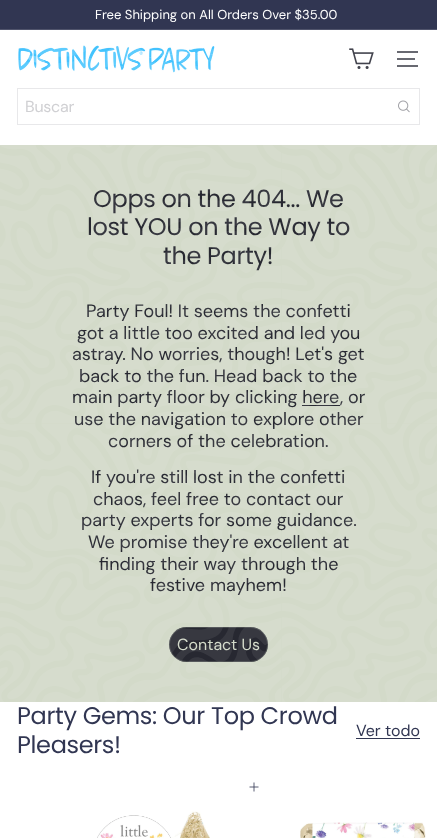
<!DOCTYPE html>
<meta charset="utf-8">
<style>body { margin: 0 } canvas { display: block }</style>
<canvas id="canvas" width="437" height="838"></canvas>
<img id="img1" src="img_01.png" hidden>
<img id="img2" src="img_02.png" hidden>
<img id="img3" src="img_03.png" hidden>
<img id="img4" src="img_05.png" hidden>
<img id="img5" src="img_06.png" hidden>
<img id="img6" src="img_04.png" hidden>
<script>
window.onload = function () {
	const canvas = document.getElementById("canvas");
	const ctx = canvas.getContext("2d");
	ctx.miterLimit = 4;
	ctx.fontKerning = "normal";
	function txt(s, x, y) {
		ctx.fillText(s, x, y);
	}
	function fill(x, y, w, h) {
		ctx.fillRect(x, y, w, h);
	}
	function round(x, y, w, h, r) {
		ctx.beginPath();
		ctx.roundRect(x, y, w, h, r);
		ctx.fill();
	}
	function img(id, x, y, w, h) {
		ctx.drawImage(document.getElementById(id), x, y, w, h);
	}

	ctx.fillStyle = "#FFFFFF";
	fill(0, 0, 437, 838);
	ctx.fillStyle = "#313652";
	fill(0, 0, 437, 29);
	ctx.fillStyle = "#50546C";
	fill(0, 29, 437, 1);
	img("img1", 18, 45, 197, 28);
	img("img2", 349, 48, 25, 21);
	ctx.fillStyle = "#686971";
	fill(397, 51, 21, 2);
	fill(397, 58, 18, 2);
	fill(397, 65, 21, 2);
	ctx.strokeStyle = "#E8E8EA";
	ctx.strokeRect(17.5, 88.5, 402, 36);
	img("img3", 398, 100, 12, 13);
	ctx.fillStyle = "#D3DAC9";
	fill(0, 145, 437, 557);
	ctx.fillStyle = "#272831";
	fill(302, 405, 38, 1);
	round(169, 627, 99, 35, 17.5);
	ctx.beginPath();
	ctx.roundRect(169.5, 627.5, 98, 34, 17);
	ctx.strokeStyle = "rgba(211, 218, 201, 0.2)";
	ctx.stroke();
	ctx.fillStyle = "#313652";
	fill(356, 738, 64, 1);
	ctx.beginPath();
	ctx.moveTo(254, 782.5);
	ctx.lineTo(254, 791.5);
	ctx.moveTo(258.5, 787);
	ctx.lineTo(249.5, 787);
	ctx.strokeStyle = "#313652";
	ctx.lineWidth = 0.8;
	ctx.stroke();
	img("img4", 97, 811, 113, 27);
	img("img5", 300, 822, 126, 16);
	ctx.font = "13px 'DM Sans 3'";
	ctx.fillStyle = "#FFFFFF";
	txt("Free Shipping on All Orders Over $35.00", 95, 19);
	ctx.letterSpacing = "-0.25px";
	ctx.font = "16px DM Sans";
	ctx.fillStyle = "#D0D0D3";
	txt("Buscar", 25, 112);
	ctx.letterSpacing = "-0.35px";
	ctx.font = "24px Poppins";
	ctx.fillStyle = "#272831";
	txt("Opps on the 404... We", 93, 207);
	txt("lost YOU on the Way to", 87, 235);
	txt("the Party!", 163, 264);
	ctx.letterSpacing = "0px";
	ctx.font = "18px 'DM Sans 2'";
	txt("Party Foul! It seems the confetti", 86, 317);
	txt("got a little too excited and led you", 77, 339);
	txt("astray. No worries, though! Let's get", 72, 360);
	txt("back to the fun. Head back to the", 79, 382);
	txt("main party floor by clicking here", 72, 403);
	txt(", or", 340, 403);
	txt("use the navigation to explore other", 74, 425);
	txt("corners of the celebration.", 108, 447);
	txt("If you're still lost in the confetti", 91, 483);
	txt("chaos, feel free to contact our", 93, 505);
	txt("party experts for some guidance.", 81, 526);
	txt("We promise they're excellent at", 88, 548);
	txt("finding their way through the", 99, 570);
	txt("festive mayhem!", 150, 591);
	ctx.font = "16px DM Sans";
	ctx.fillStyle = "#D3DAC9";
	txt("Contact Us", 177, 650);
	img("img6", 0, 145, 437, 557);
	ctx.letterSpacing = "-0.35px";
	ctx.font = "24px Poppins";
	ctx.fillStyle = "#313652";
	txt("Party Gems: Our Top Crowd", 17, 724);
	txt("Pleasers!", 17, 753);
	ctx.letterSpacing = "0px";
	ctx.font = "16px DM Sans";
	txt("Ver todo", 356, 736);
};
</script>
